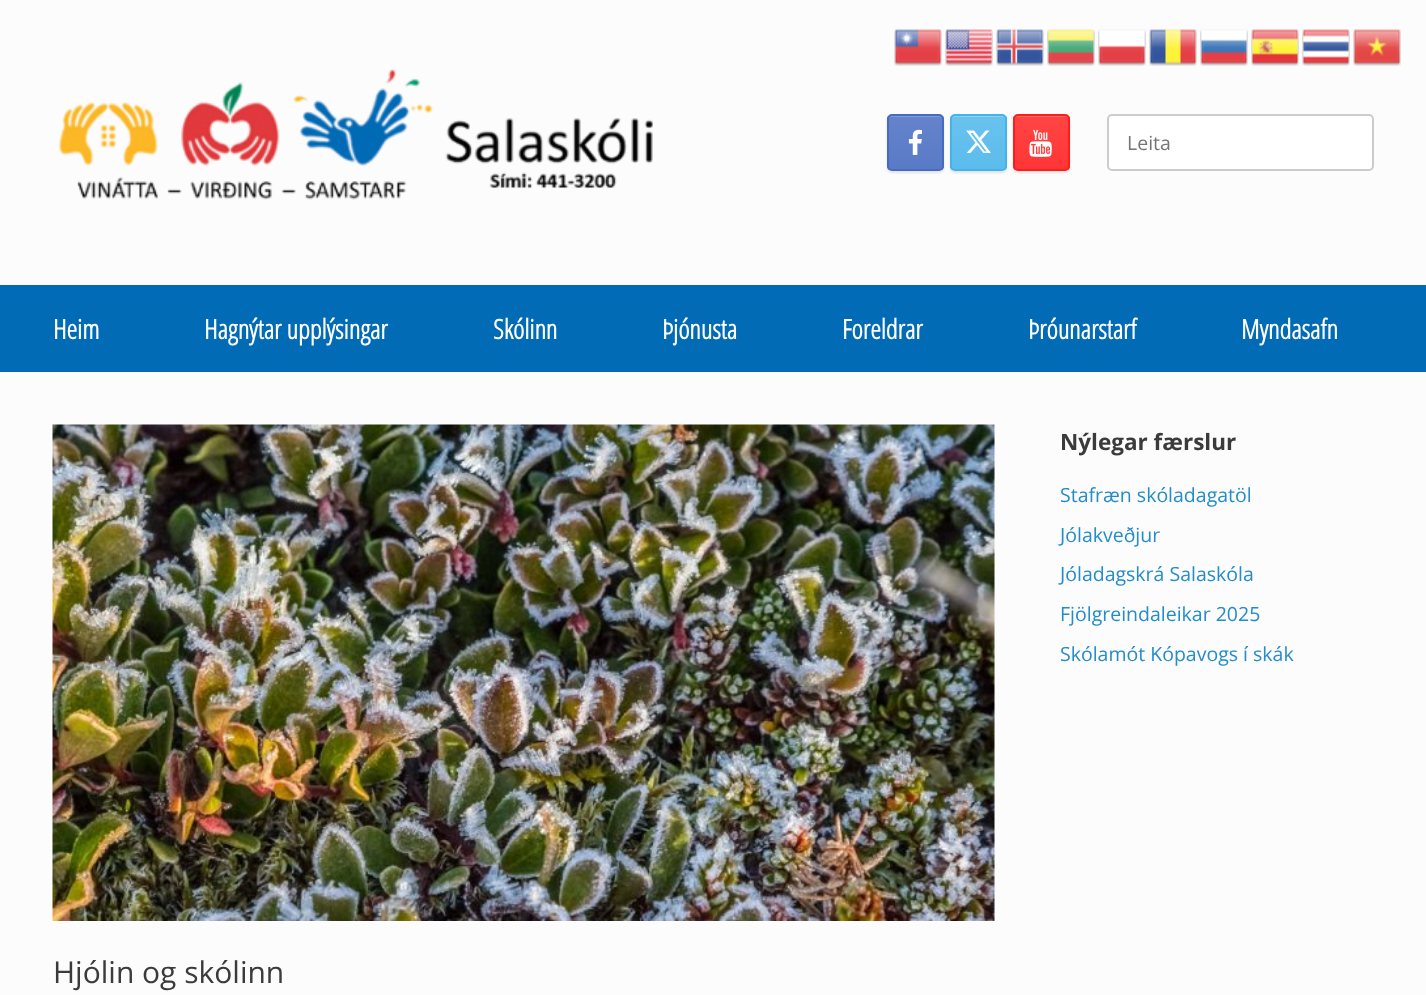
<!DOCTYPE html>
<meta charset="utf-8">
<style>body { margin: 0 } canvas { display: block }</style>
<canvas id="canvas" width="1426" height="995"></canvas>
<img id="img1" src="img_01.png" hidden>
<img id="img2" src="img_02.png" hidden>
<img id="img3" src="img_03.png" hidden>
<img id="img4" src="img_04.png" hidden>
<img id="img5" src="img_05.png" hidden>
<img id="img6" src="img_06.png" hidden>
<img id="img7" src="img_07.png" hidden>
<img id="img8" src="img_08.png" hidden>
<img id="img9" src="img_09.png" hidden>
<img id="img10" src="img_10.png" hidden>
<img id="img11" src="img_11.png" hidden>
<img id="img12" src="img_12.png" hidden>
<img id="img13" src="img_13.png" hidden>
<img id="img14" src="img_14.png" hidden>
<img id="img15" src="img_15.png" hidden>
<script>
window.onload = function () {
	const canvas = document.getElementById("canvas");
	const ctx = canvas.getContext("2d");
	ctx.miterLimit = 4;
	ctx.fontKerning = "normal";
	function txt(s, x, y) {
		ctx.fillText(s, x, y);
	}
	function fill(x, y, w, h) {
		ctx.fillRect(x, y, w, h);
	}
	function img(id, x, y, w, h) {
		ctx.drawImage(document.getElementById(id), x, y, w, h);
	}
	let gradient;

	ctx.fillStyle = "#FCFCFC";
	fill(0, 0, 1426, 995);
	img("img1", 894, 29, 48, 37);
	img("img2", 945, 29, 48, 37);
	img("img3", 996, 29, 48, 37);
	img("img4", 1047, 29, 48, 37);
	img("img5", 1098, 29, 48, 37);
	img("img6", 1149, 29, 48, 37);
	img("img7", 1200, 29, 48, 37);
	img("img8", 1251, 29, 48, 37);
	img("img9", 1302, 29, 48, 37);
	img("img10", 1353, 29, 48, 37);
	img("img11", 58, 69, 595, 131);
	ctx.fillStyle = "rgba(0, 0, 0, 0.1)";
	ctx.filter = "blur(1px)";
	ctx.beginPath();
	ctx.roundRect(887, 116, 57, 57, 5);
	ctx.fill();
	ctx.filter = "none";
	ctx.save();
	ctx.beginPath();
	ctx.roundRect(887, 114, 57, 57, 5);
	ctx.clip();
	gradient = ctx.createLinearGradient(888, 170, 888, 116);
	gradient.addColorStop(0, "#597AC7");
	gradient.addColorStop(1, "#6483CB");
	ctx.fillStyle = gradient;
	fill(887, 116, 57, 54);
	ctx.restore();
	ctx.fillStyle = "#839CD5";
	ctx.beginPath();
	ctx.moveTo(891, 117);
	ctx.lineTo(939, 117);
	ctx.bezierCurveTo(941, 117, 942, 118, 942, 120);
	ctx.bezierCurveTo(942, 114, 935, 116, 931, 116);
	ctx.lineTo(899, 116);
	ctx.bezierCurveTo(895, 116, 888, 114, 888, 120);
	ctx.bezierCurveTo(888, 118, 889, 117, 891, 117);
	ctx.closePath();
	ctx.fill();
	ctx.beginPath();
	ctx.roundRect(888, 115, 55, 55, 4);
	ctx.strokeStyle = "#466BC1";
	ctx.lineWidth = 2;
	ctx.stroke();
	img("img12", 908, 129, 14, 26);
	ctx.fillStyle = "rgba(0, 0, 0, 0.1)";
	ctx.filter = "blur(1px)";
	ctx.beginPath();
	ctx.roundRect(950, 116, 57, 57, 5);
	ctx.fill();
	ctx.filter = "none";
	ctx.save();
	ctx.beginPath();
	ctx.roundRect(950, 114, 57, 57, 5);
	ctx.clip();
	gradient = ctx.createLinearGradient(951, 170, 951, 116);
	gradient.addColorStop(0, "#5BBCEC");
	gradient.addColorStop(1, "#69C2EE");
	ctx.fillStyle = gradient;
	fill(950, 116, 57, 54);
	ctx.restore();
	ctx.fillStyle = "#8FD1F2";
	ctx.beginPath();
	ctx.moveTo(954, 117);
	ctx.lineTo(1002, 117);
	ctx.bezierCurveTo(1004, 117, 1005, 118, 1005, 120);
	ctx.bezierCurveTo(1005, 114, 998, 116, 994, 116);
	ctx.lineTo(962, 116);
	ctx.bezierCurveTo(958, 116, 951, 114, 951, 120);
	ctx.bezierCurveTo(951, 118, 952, 117, 954, 117);
	ctx.closePath();
	ctx.fill();
	ctx.beginPath();
	ctx.roundRect(951, 115, 55, 55, 4);
	ctx.strokeStyle = "#44B3E9";
	ctx.stroke();
	img("img13", 966, 130, 25, 23);
	ctx.fillStyle = "rgba(0, 0, 0, 0.1)";
	ctx.filter = "blur(1px)";
	ctx.beginPath();
	ctx.roundRect(1013, 116, 57, 57, 5);
	ctx.fill();
	ctx.filter = "none";
	ctx.save();
	ctx.beginPath();
	ctx.roundRect(1013, 114, 57, 57, 5);
	ctx.clip();
	gradient = ctx.createLinearGradient(1014, 170, 1014, 116);
	gradient.addColorStop(0, "#FF3635");
	gradient.addColorStop(1, "#FF4544");
	ctx.fillStyle = gradient;
	fill(1013, 116, 57, 54);
	ctx.restore();
	ctx.fillStyle = "#FF6A69";
	ctx.beginPath();
	ctx.moveTo(1017, 117);
	ctx.lineTo(1065, 117);
	ctx.bezierCurveTo(1067, 117, 1068, 118, 1068, 120);
	ctx.bezierCurveTo(1068, 114, 1061, 116, 1057, 116);
	ctx.lineTo(1025, 116);
	ctx.bezierCurveTo(1021, 116, 1014, 114, 1014, 120);
	ctx.bezierCurveTo(1014, 118, 1015, 117, 1017, 117);
	ctx.closePath();
	ctx.fill();
	ctx.beginPath();
	ctx.roundRect(1014, 115, 55, 55, 4);
	ctx.strokeStyle = "#FF1D1B";
	ctx.stroke();
	img("img14", 1029, 129, 23, 28);
	ctx.fillStyle = "#FFFFFF";
	ctx.beginPath();
	ctx.roundRect(1108, 115, 265, 55, 4);
	ctx.fill();
	ctx.strokeStyle = "#CCCCCC";
	ctx.stroke();
	ctx.fillStyle = "#016BB5";
	fill(0, 285, 1426, 87);
	img("img15", 52, 424, 943, 497);
	ctx.font = "19.5px Open Sans";
	ctx.fillStyle = "#757575";
	txt("Leita", 1127, 150);
	ctx.font = "bold 27px Open Sans Condensed";
	ctx.fillStyle = "#FFFFFF";
	txt("Heim", 53, 339);
	txt("Hagnýtar upplýsingar", 204, 339);
	txt("Skólinn", 493, 339);
	txt("Þjónusta", 662, 339);
	txt("Foreldrar", 842, 339);
	txt("Þróunarstarf", 1028, 339);
	txt("Myndasafn", 1241, 339);
	ctx.font = "bold 22.5px Open Sans";
	ctx.fillStyle = "#3B3B3B";
	txt("Nýlegar færslur", 1060, 450);
	ctx.font = "19.5px Open Sans";
	ctx.fillStyle = "#248CC8";
	txt("Stafræn skóladagatöl", 1060, 502);
	txt("Jólakveðjur", 1060, 542);
	txt("Jóladagskrá Salaskóla", 1060, 581);
	txt("Fjölgreindaleikar 2025", 1060, 621);
	txt("Skólamót Kópavogs í skák", 1060, 661);
	ctx.font = "30px Open Sans";
	ctx.fillStyle = "#3B3B3B";
	txt("Hjólin og skólinn", 53, 983);
};
</script>
